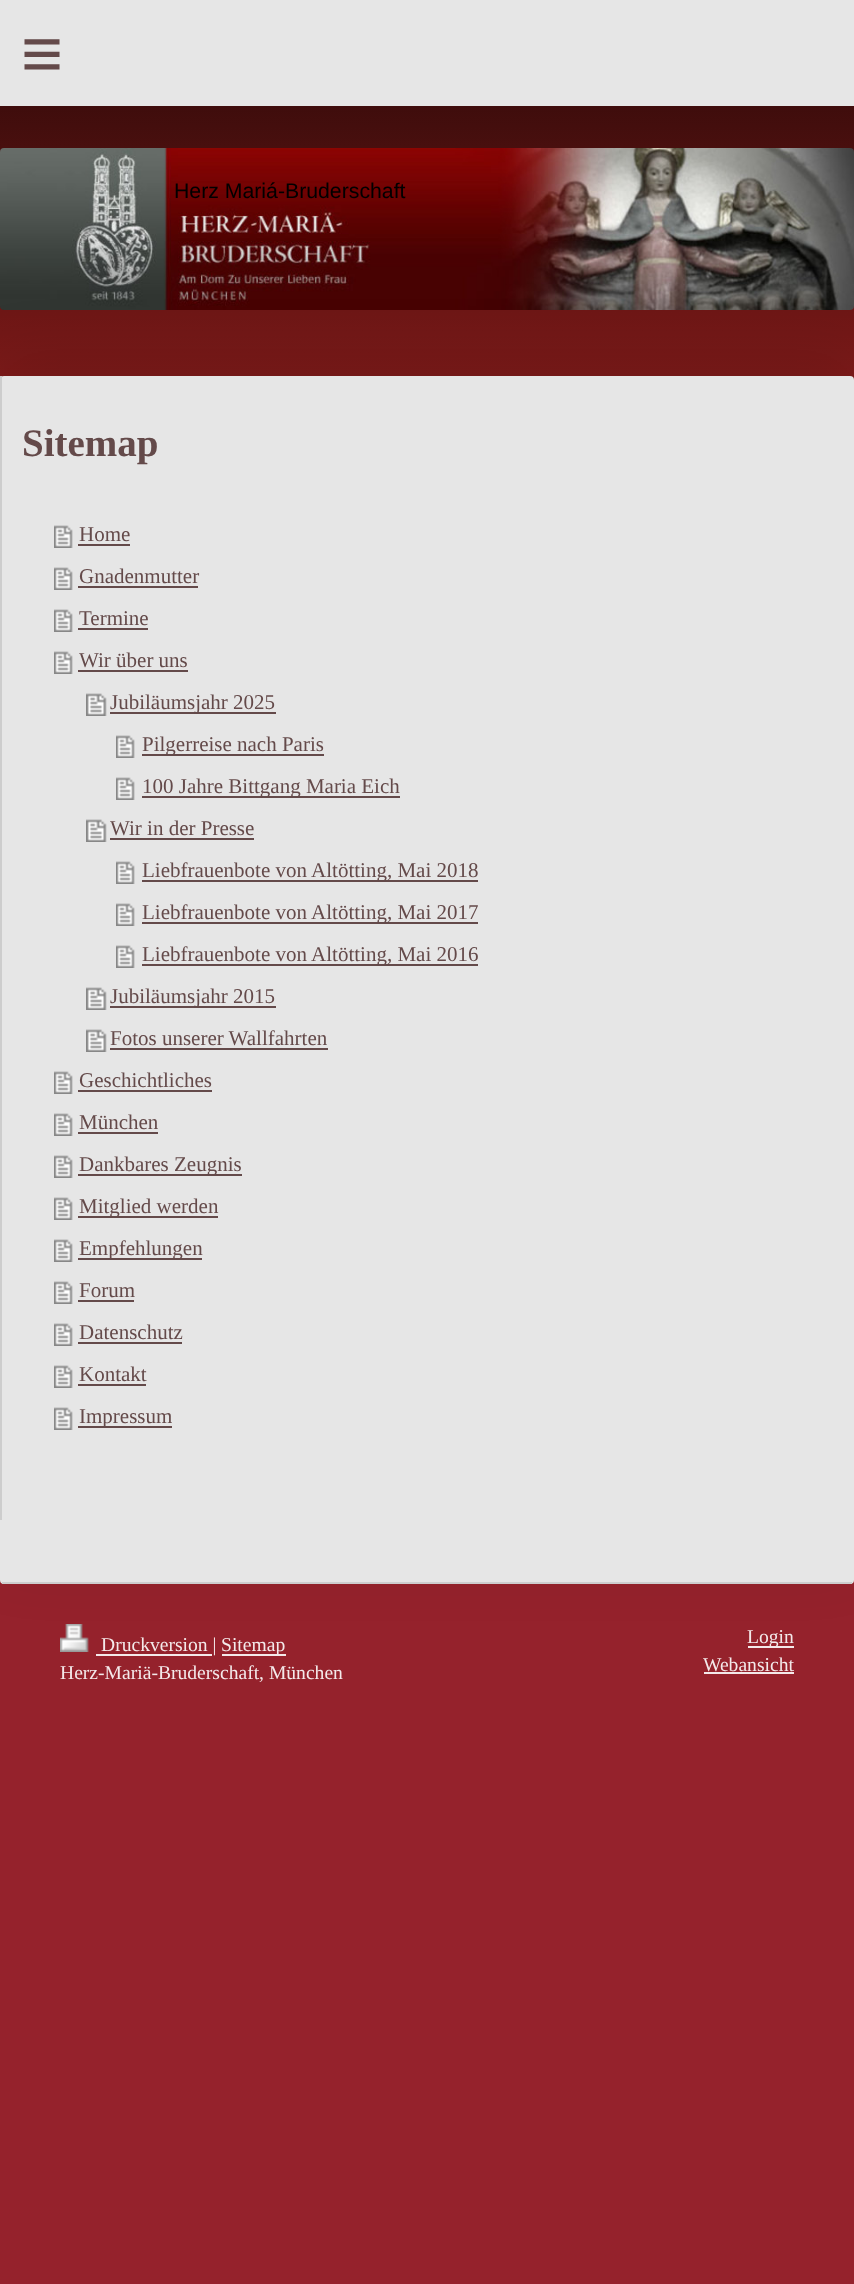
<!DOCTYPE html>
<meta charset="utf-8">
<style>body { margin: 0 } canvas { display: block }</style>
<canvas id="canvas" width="854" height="2284"></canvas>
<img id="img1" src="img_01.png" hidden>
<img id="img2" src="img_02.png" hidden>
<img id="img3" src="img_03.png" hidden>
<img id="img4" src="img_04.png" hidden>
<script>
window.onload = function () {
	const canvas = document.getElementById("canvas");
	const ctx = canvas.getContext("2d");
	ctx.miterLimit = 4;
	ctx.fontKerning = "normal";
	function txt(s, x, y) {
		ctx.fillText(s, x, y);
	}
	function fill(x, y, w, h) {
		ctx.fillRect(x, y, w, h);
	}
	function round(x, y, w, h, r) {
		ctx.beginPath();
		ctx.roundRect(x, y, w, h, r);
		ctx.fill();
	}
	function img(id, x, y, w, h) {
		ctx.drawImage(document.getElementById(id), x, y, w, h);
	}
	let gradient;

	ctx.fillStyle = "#95222C";
	fill(0, 0, 854, 2284);
	ctx.fillStyle = "#E6E6E6";
	fill(0, 0, 854, 106);
	gradient = ctx.createLinearGradient(0, 436, 0, 106);
	gradient.addColorStop(0, "#8B1D1C");
	gradient.addColorStop(1, "#3F0D0C");
	ctx.fillStyle = gradient;
	fill(0, 106, 854, 274);
	img("img1", 0, 148, 854, 162);
	ctx.fillStyle = "rgba(0, 0, 0, 0.1)";
	ctx.filter = "blur(30px)";
	ctx.beginPath();
	ctx.roundRect(0, 356, 854, 1208, 4);
	ctx.fill();
	ctx.filter = "none";
	ctx.fillStyle = "#E6E6E6";
	round(0, 376, 854, 1208, 4);
	ctx.fillStyle = "#CDCDCD";
	fill(2, 1582, 850, 2);
	fill(0, 376, 2, 1144);
	img("img2", 54, 525, 19, 23);
	ctx.fillStyle = "#644A4A";
	fill(78, 544, 52, 2);
	img("img2", 54, 567, 19, 23);
	fill(78, 586, 120, 2);
	img("img2", 54, 609, 19, 23);
	fill(78, 628, 70, 2);
	img("img2", 54, 651, 19, 23);
	fill(78, 670, 110, 2);
	img("img3", 86, 693, 21, 23);
	fill(110, 712, 166, 2);
	img("img2", 116, 735, 19, 23);
	fill(142, 754, 182, 2);
	img("img2", 116, 777, 19, 23);
	fill(142, 796, 258, 2);
	img("img3", 86, 819, 21, 23);
	fill(110, 838, 144, 2);
	img("img2", 116, 861, 19, 23);
	fill(142, 880, 336, 2);
	img("img2", 116, 903, 19, 23);
	fill(142, 922, 336, 2);
	img("img2", 116, 945, 19, 23);
	fill(142, 964, 336, 2);
	img("img3", 86, 987, 21, 23);
	fill(110, 1006, 166, 2);
	img("img3", 86, 1029, 21, 23);
	fill(110, 1048, 218, 2);
	img("img2", 54, 1071, 19, 23);
	fill(78, 1090, 134, 2);
	img("img2", 54, 1113, 19, 23);
	fill(78, 1132, 80, 2);
	img("img2", 54, 1155, 19, 23);
	fill(78, 1174, 164, 2);
	img("img2", 54, 1197, 19, 23);
	fill(78, 1216, 140, 2);
	img("img2", 54, 1239, 19, 23);
	fill(78, 1258, 124, 2);
	img("img2", 54, 1281, 19, 23);
	fill(78, 1300, 56, 2);
	img("img2", 54, 1323, 19, 23);
	fill(78, 1342, 104, 2);
	img("img2", 54, 1365, 19, 23);
	fill(78, 1384, 68, 2);
	img("img2", 54, 1407, 19, 23);
	fill(78, 1426, 94, 2);
	img("img4", 60, 1624, 29, 28);
	ctx.fillStyle = "#F4E9EA";
	fill(96, 1654, 116, 2);
	fill(222, 1654, 64, 2);
	fill(748, 1646, 46, 2);
	fill(704, 1672, 90, 2);
	ctx.letterSpacing = "21px";
	ctx.font = "72px Liberation Sans";
	ctx.fillStyle = "#644A4A";
	txt("≡", 21, 78);
	ctx.letterSpacing = "0px";
	ctx.font = "21.25px Liberation Sans";
	ctx.fillStyle = "#000000";
	txt("Herz Mariá-Bruderschaft", 174, 198);
	ctx.font = "bold 39px Liberation Serif";
	ctx.fillStyle = "#644A4A";
	txt("Sitemap", 22, 456);
	ctx.font = "21px Liberation Serif";
	txt("Home", 79, 541);
	txt("Gnadenmutter", 79, 583);
	txt("Termine", 79, 625);
	txt("Wir über uns", 79, 667);
	txt("Jubiläumsjahr 2025", 110, 709);
	txt("Pilgerreise nach Paris", 142, 751);
	txt("100 Jahre Bittgang Maria Eich", 142, 793);
	txt("Wir in der Presse", 110, 835);
	txt("Liebfrauenbote von Altötting, Mai 2018", 142, 877);
	txt("Liebfrauenbote von Altötting, Mai 2017", 142, 919);
	txt("Liebfrauenbote von Altötting, Mai 2016", 142, 961);
	txt("Jubiläumsjahr 2015", 110, 1003);
	txt("Fotos unserer Wallfahrten", 110, 1045);
	txt("Geschichtliches", 79, 1087);
	txt("München", 79, 1129);
	txt("Dankbares Zeugnis", 79, 1171);
	txt("Mitglied werden", 79, 1213);
	txt("Empfehlungen", 79, 1255);
	txt("Forum", 79, 1297);
	txt("Datenschutz", 79, 1339);
	txt("Kontakt", 79, 1381);
	txt("Impressum", 79, 1423);
	ctx.font = "19.6px Liberation Serif";
	ctx.fillStyle = "#F4E9EA";
	txt("Druckversion |", 101, 1651);
	txt("Sitemap", 221, 1651);
	txt("Herz-Mariä-Bruderschaft, München", 60, 1679);
	txt("Login", 747, 1643);
	txt("Webansicht", 703, 1671);
};
</script>
